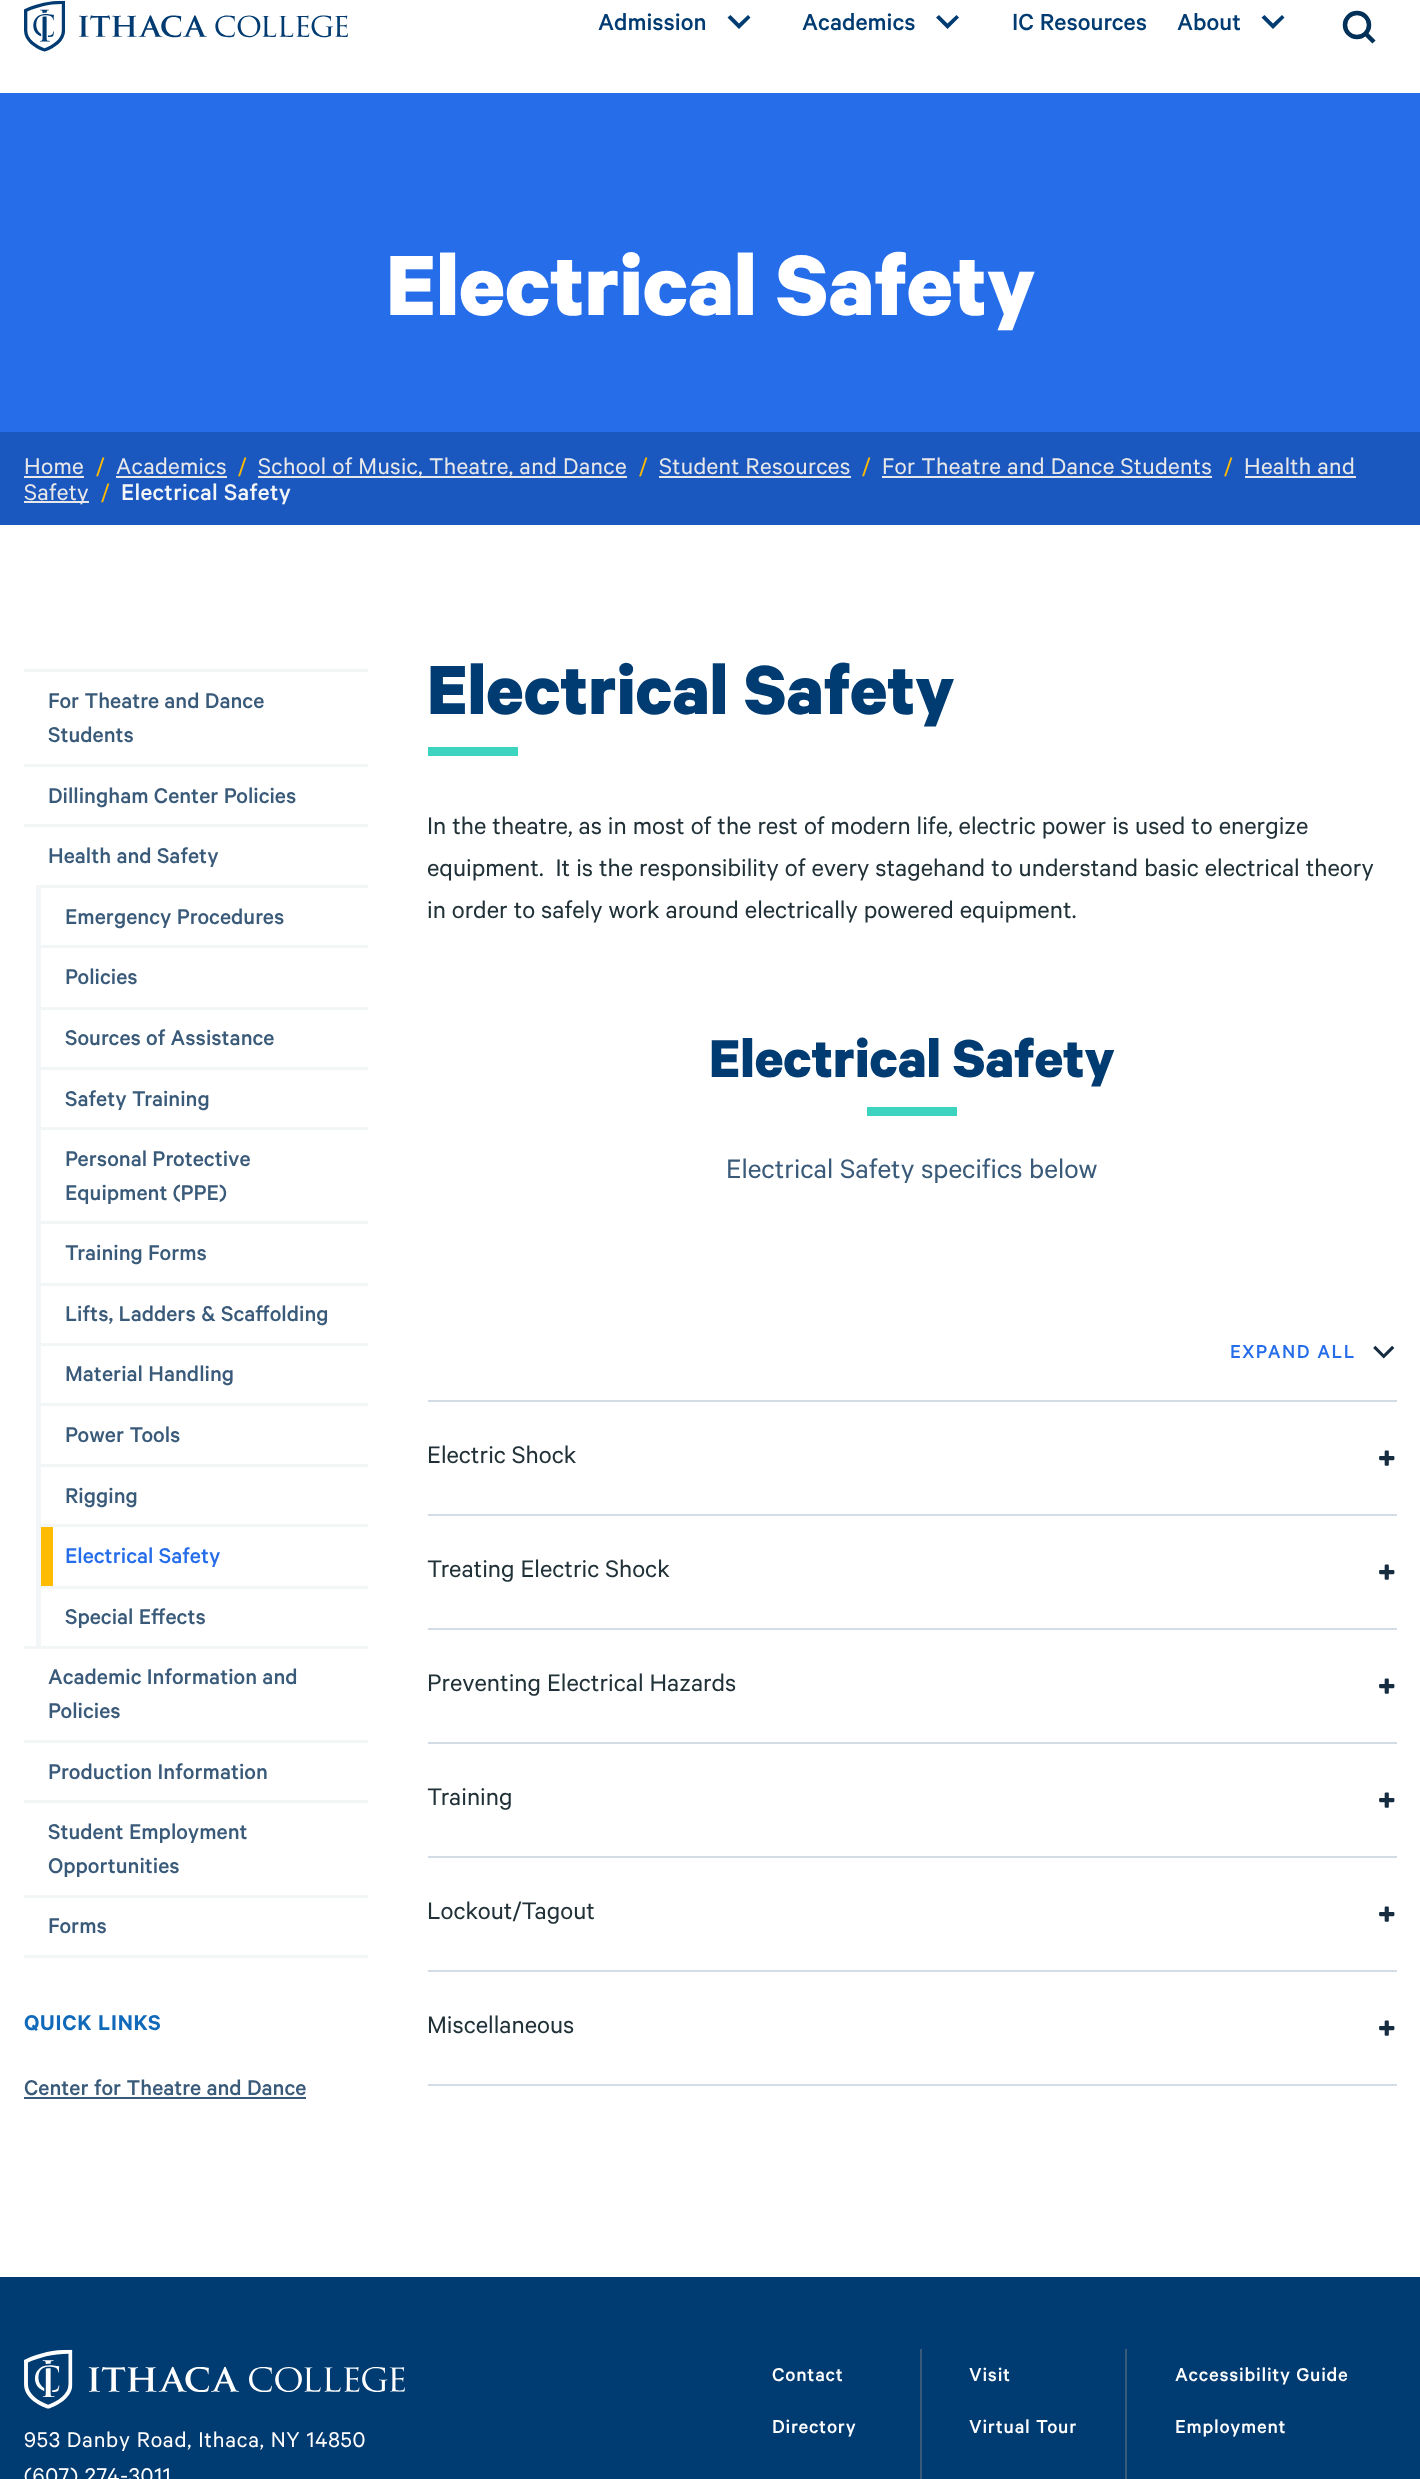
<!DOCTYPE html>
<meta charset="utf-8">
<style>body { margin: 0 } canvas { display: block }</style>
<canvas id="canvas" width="1420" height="2479"></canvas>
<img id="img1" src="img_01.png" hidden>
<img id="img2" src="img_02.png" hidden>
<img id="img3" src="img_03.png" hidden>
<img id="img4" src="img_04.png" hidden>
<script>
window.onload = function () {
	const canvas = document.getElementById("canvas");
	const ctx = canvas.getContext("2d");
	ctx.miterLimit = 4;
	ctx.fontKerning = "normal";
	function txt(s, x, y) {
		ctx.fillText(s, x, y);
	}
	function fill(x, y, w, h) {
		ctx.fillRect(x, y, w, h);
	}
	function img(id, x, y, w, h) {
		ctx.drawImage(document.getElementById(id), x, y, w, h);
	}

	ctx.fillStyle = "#FFFFFF";
	fill(0, 0, 1420, 2479);
	img("img1", 24, 0, 324, 52);
	ctx.fillStyle = "#003B71";
	ctx.beginPath();
	ctx.moveTo(730.5, 15);
	ctx.lineTo(739, 23.5);
	ctx.lineTo(748, 15);
	ctx.lineTo(750.5, 17.5);
	ctx.lineTo(739, 29);
	ctx.lineTo(727.5, 17.5);
	ctx.closePath();
	ctx.fill();
	ctx.beginPath();
	ctx.moveTo(939, 15);
	ctx.lineTo(947.5, 23.5);
	ctx.lineTo(956.5, 15);
	ctx.lineTo(959, 17.5);
	ctx.lineTo(947.5, 29);
	ctx.lineTo(936, 17.5);
	ctx.closePath();
	ctx.fill();
	ctx.beginPath();
	ctx.moveTo(1264.5, 15);
	ctx.lineTo(1273, 23.5);
	ctx.lineTo(1282, 15);
	ctx.lineTo(1284.5, 17.5);
	ctx.lineTo(1273, 29);
	ctx.lineTo(1261.5, 17.5);
	ctx.closePath();
	ctx.fill();
	ctx.beginPath();
	ctx.arc(1357, 25, 12, 0, Math.PI * 2);
	ctx.strokeStyle = "#013158";
	ctx.lineWidth = 4.5;
	ctx.stroke();
	ctx.beginPath();
	ctx.moveTo(1374, 42);
	ctx.lineTo(1364.5, 32.5);
	ctx.stroke();
	ctx.fillStyle = "#266DEA";
	fill(0, 93, 1420, 339);
	ctx.fillStyle = "#1A57BF";
	fill(0, 432, 1420, 93);
	ctx.fillStyle = "#E8E8E8";
	fill(24, 476, 60, 2);
	fill(116, 476, 111, 2);
	fill(258, 476, 369, 2);
	fill(659, 476, 192, 2);
	fill(882, 476, 330, 2);
	fill(1245, 476, 111, 2);
	fill(24, 501, 65, 2);
	ctx.fillStyle = "#F3F6F7";
	fill(24, 669, 344, 3);
	fill(24, 764, 344, 3);
	fill(24, 824, 344, 3);
	fill(36, 885, 5, 761);
	fill(41, 885, 327, 3);
	fill(41, 945, 327, 3);
	fill(41, 1007, 327, 3);
	fill(41, 1067, 327, 3);
	fill(41, 1127, 327, 3);
	fill(41, 1221, 327, 3);
	fill(41, 1283, 327, 3);
	fill(41, 1343, 327, 3);
	fill(41, 1403, 327, 3);
	fill(41, 1464, 327, 3);
	fill(41, 1524, 327, 3);
	ctx.fillStyle = "#FFBB00";
	fill(41, 1527, 12, 59);
	ctx.fillStyle = "#F3F6F7";
	fill(41, 1586, 327, 3);
	fill(24, 1646, 344, 3);
	fill(24, 1740, 344, 3);
	fill(24, 1800, 344, 3);
	fill(24, 1895, 344, 3);
	fill(24, 1955, 344, 3);
	ctx.fillStyle = "#3A5A79";
	fill(24, 2097, 282, 2);
	ctx.fillStyle = "#3CD4BF";
	fill(428, 747, 90, 9);
	fill(867, 1107, 90, 9);
	img("img2", 1373, 1345, 22, 14);
	ctx.fillStyle = "#D3DCE5";
	fill(428, 2084, 969, 2);
	fill(428, 1400, 969, 2);
	img("img3", 1379, 1450, 16, 16);
	fill(428, 1514, 969, 2);
	img("img3", 1379, 1564, 16, 16);
	fill(428, 1628, 969, 2);
	img("img3", 1379, 1678, 16, 16);
	fill(428, 1742, 969, 2);
	img("img3", 1379, 1792, 16, 16);
	fill(428, 1856, 969, 2);
	img("img3", 1379, 1906, 16, 16);
	fill(428, 1970, 969, 2);
	img("img3", 1379, 2020, 16, 16);
	ctx.fillStyle = "#003B71";
	fill(0, 2277, 1420, 202);
	ctx.fillStyle = "#3A5A79";
	fill(920, 2349, 2, 130);
	fill(1125, 2349, 2, 130);
	img("img4", 24, 2349, 381, 60);
	ctx.font = "500 26.25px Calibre";
	ctx.fillStyle = "#003B71";
	txt("Admission", 598, 30);
	txt("Academics", 802, 30);
	txt("IC Resources", 1012, 30);
	txt("About", 1177, 30);
	ctx.font = "bold 96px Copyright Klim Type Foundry";
	ctx.fillStyle = "#FFFFFF";
	txt("Electrical Safety", 386, 315);
	ctx.letterSpacing = "0.3px";
	ctx.font = "25.5px Copyright Klim Type Foundry";
	ctx.fillStyle = "#E8E8E8";
	txt("Home", 24, 474);
	ctx.letterSpacing = "0px";
	ctx.fillStyle = "#FFBB00";
	txt("/", 96, 474);
	ctx.letterSpacing = "0.3px";
	ctx.fillStyle = "#E8E8E8";
	txt("Academics", 116, 474);
	ctx.letterSpacing = "0px";
	ctx.fillStyle = "#FFBB00";
	txt("/", 238, 474);
	ctx.letterSpacing = "0.3px";
	ctx.fillStyle = "#E8E8E8";
	txt("School of Music, Theatre, and Dance", 258, 474);
	ctx.letterSpacing = "0px";
	ctx.fillStyle = "#FFBB00";
	txt("/", 639, 474);
	ctx.letterSpacing = "0.3px";
	ctx.fillStyle = "#E8E8E8";
	txt("Student Resources", 659, 474);
	ctx.letterSpacing = "0px";
	ctx.fillStyle = "#FFBB00";
	txt("/", 862, 474);
	ctx.letterSpacing = "0.3px";
	ctx.fillStyle = "#E8E8E8";
	txt("For Theatre and Dance Students", 882, 474);
	ctx.letterSpacing = "0px";
	ctx.fillStyle = "#FFBB00";
	txt("/", 1224, 474);
	ctx.letterSpacing = "0.3px";
	ctx.fillStyle = "#E8E8E8";
	txt("Health and", 1244, 474);
	txt("Safety", 24, 500);
	ctx.letterSpacing = "0px";
	ctx.fillStyle = "#FFBB00";
	txt("/", 101, 500);
	ctx.letterSpacing = "0.3px";
	ctx.font = "500 25.5px Calibre";
	ctx.fillStyle = "#F3F6F7";
	txt("Electrical Safety", 121, 500);
	ctx.letterSpacing = "0px";
	ctx.font = "500 24px Calibre";
	ctx.fillStyle = "#3A5A79";
	txt("For Theatre and Dance", 48, 708);
	txt("Students", 48, 742);
	txt("Dillingham Center Policies", 48, 803);
	txt("Health and Safety", 48, 863);
	txt("Emergency Procedures", 65, 924);
	txt("Policies", 65, 984);
	txt("Sources of Assistance", 65, 1045);
	txt("Safety Training", 65, 1106);
	txt("Personal Protective", 65, 1166);
	txt("Equipment (PPE)", 65, 1200);
	txt("Training Forms", 65, 1260);
	txt("Lifts, Ladders & Scaffolding", 65, 1321);
	txt("Material Handling", 65, 1381);
	txt("Power Tools", 65, 1442);
	txt("Rigging", 65, 1503);
	ctx.fillStyle = "#266DEA";
	txt("Electrical Safety", 65, 1563);
	ctx.fillStyle = "#3A5A79";
	txt("Special Effects", 65, 1624);
	txt("Academic Information and", 48, 1684);
	txt("Policies", 48, 1718);
	txt("Production Information", 48, 1779);
	txt("Student Employment", 48, 1839);
	txt("Opportunities", 48, 1873);
	txt("Forms", 48, 1933);
	ctx.letterSpacing = "0.75px";
	ctx.font = "600 24px Calibre";
	ctx.fillStyle = "#1169BA";
	txt("QUICK LINKS", 24, 2030);
	ctx.letterSpacing = "0px";
	ctx.font = "500 24px Calibre";
	ctx.fillStyle = "#3A5A79";
	txt("Center for Theatre and Dance", 24, 2095);
	ctx.font = "bold 78px Copyright Klim Type Foundry";
	ctx.fillStyle = "#003B71";
	txt("Electrical Safety", 427, 714);
	ctx.font = "27px Copyright Klim Type Foundry";
	ctx.fillStyle = "#213138";
	txt("In the theatre, as in most of the rest of modern life, electric power is used to energize", 427, 834);
	txt("equipment.  It is the responsibility of every stagehand to understand basic electrical theory", 427, 876);
	txt("in order to safely work around electrically powered equipment.", 427, 918);
	ctx.font = "bold 60px Copyright Klim Type Foundry";
	ctx.fillStyle = "#003B71";
	txt("Electrical Safety", 709, 1077);
	ctx.font = "30px Copyright Klim Type Foundry";
	ctx.fillStyle = "#3A5A79";
	txt("Electrical Safety specifics below", 726, 1178);
	ctx.letterSpacing = "1.5px";
	ctx.font = "500 21px Calibre";
	ctx.fillStyle = "#266DEA";
	txt("EXPAND ALL", 1230, 1358);
	ctx.letterSpacing = "0px";
	ctx.font = "27px Copyright Klim Type Foundry";
	ctx.fillStyle = "#213138";
	txt("Electric Shock", 427, 1463);
	txt("Treating Electric Shock", 427, 1577);
	txt("Preventing Electrical Hazards", 427, 1691);
	txt("Training", 427, 1805);
	txt("Lockout/Tagout", 427, 1919);
	txt("Miscellaneous", 427, 2033);
	ctx.letterSpacing = "0.75px";
	ctx.font = "500 21px Calibre";
	ctx.fillStyle = "#FFFFFF";
	txt("Contact", 772, 2381);
	txt("Directory", 772, 2433);
	txt("Visit", 969, 2381);
	txt("Virtual Tour", 969, 2433);
	txt("Accessibility Guide", 1175, 2381);
	txt("Employment", 1175, 2433);
	ctx.font = "24px Copyright Klim Type Foundry";
	txt("953 Danby Road, Ithaca, NY 14850", 24, 2447);
	txt("(607) 274-3011", 24, 2483);
};
</script>
